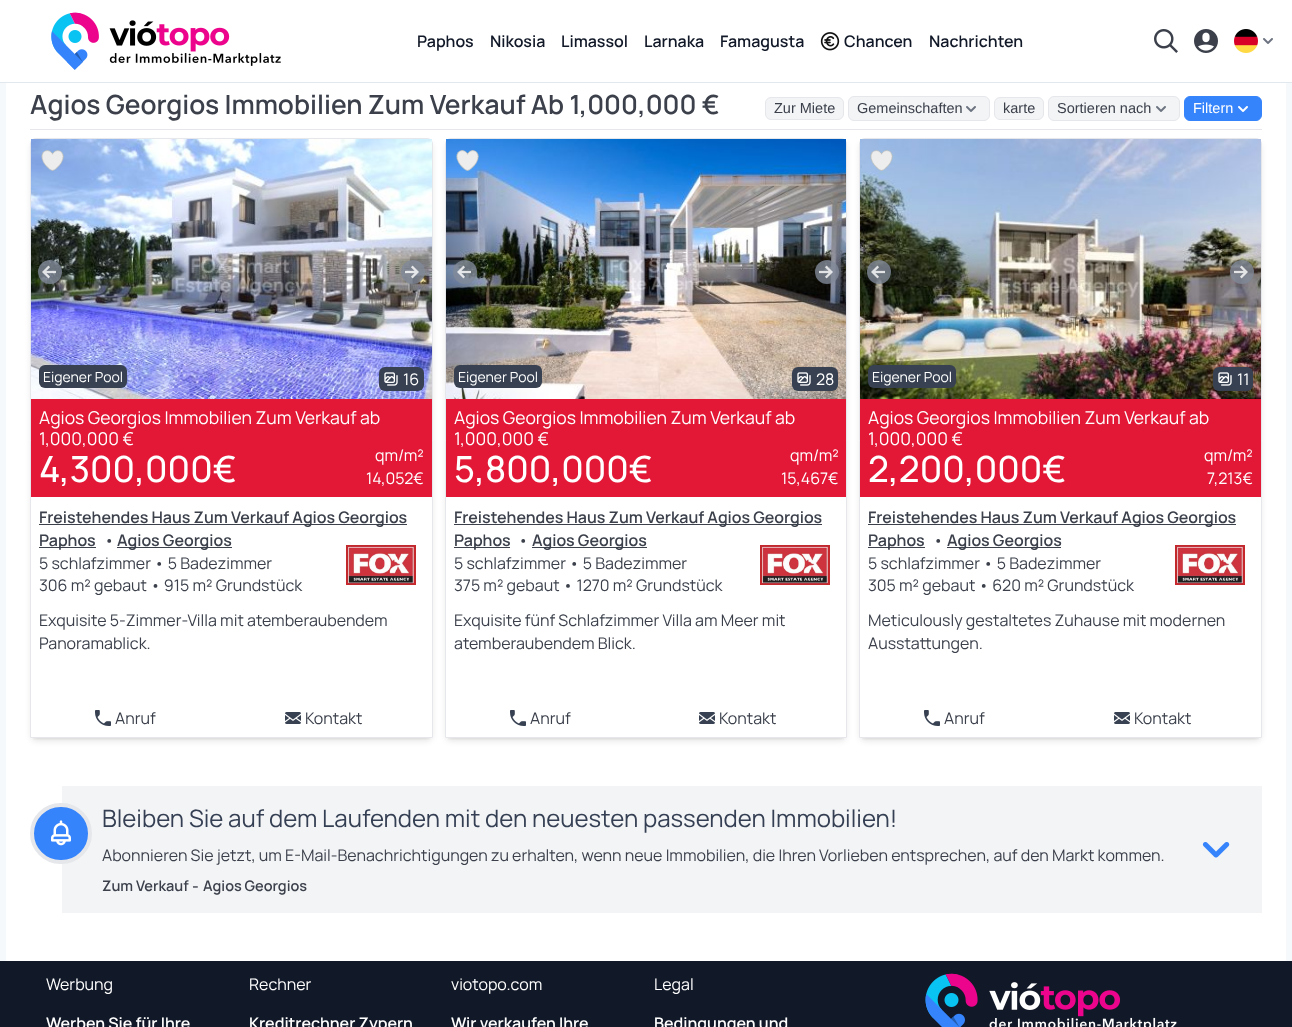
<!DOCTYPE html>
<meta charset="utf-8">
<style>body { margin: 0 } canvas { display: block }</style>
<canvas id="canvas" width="1292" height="1027"></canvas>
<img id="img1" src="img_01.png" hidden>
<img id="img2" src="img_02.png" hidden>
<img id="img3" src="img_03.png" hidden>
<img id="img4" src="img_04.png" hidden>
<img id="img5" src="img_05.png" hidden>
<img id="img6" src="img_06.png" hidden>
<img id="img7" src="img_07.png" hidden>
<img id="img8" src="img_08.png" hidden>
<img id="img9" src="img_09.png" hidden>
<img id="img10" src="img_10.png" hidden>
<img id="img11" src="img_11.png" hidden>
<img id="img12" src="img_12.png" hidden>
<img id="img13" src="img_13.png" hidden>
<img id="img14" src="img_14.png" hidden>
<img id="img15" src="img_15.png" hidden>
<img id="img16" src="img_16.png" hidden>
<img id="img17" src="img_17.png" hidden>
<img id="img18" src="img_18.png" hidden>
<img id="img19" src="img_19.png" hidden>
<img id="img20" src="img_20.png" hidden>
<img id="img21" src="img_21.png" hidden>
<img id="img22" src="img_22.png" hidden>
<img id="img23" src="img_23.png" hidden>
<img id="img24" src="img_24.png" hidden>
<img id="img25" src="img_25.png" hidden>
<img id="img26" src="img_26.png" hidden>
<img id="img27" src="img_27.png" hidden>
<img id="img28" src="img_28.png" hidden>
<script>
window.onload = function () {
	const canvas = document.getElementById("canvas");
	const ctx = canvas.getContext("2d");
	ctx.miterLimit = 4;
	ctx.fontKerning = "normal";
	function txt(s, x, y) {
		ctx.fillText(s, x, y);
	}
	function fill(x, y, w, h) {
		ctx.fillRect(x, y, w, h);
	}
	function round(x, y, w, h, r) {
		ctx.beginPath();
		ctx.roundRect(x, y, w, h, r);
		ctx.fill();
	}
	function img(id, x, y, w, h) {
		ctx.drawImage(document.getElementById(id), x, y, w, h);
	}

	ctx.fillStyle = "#F6F9FC";
	fill(0, 0, 1292, 1027);
	ctx.fillStyle = "#FFFFFF";
	fill(0, 0, 1292, 82);
	ctx.fillStyle = "#E2E9EE";
	fill(0, 82, 1292, 1);
	img("img1", 51, 12, 230, 58);
	img("img2", 820, 32, 20, 19);
	img("img3", 1154, 29, 24, 24);
	img("img4", 1194, 29, 24, 24);
	img("img5", 1234, 29, 24, 24);
	img("img6", 1263, 38, 10, 6);
	ctx.fillStyle = "#FFFFFF";
	fill(6, 83, 1280, 878);
	ctx.fillStyle = "#E5E7EB";
	fill(30, 129, 1232, 1);
	ctx.fillStyle = "#F3F4F6";
	ctx.beginPath();
	ctx.roundRect(765.5, 97.5, 78, 22, 5.5);
	ctx.fill();
	ctx.strokeStyle = "#E5E7EB";
	ctx.stroke();
	ctx.beginPath();
	ctx.roundRect(848.5, 96.5, 141, 24, 5.5);
	ctx.fill();
	ctx.stroke();
	img("img7", 966, 106, 10, 6);
	ctx.beginPath();
	ctx.roundRect(994.5, 97.5, 49, 22, 5.5);
	ctx.fill();
	ctx.stroke();
	ctx.beginPath();
	ctx.roundRect(1048.5, 96.5, 131, 24, 5.5);
	ctx.fill();
	ctx.stroke();
	img("img7", 1156, 106, 10, 6);
	ctx.fillStyle = "#3684FB";
	ctx.beginPath();
	ctx.roundRect(1184.5, 96.5, 77, 24, 5.5);
	ctx.fill();
	ctx.strokeStyle = "#3684FB";
	ctx.stroke();
	img("img8", 1238, 106, 10, 6);
	ctx.save();
	ctx.beginPath();
	ctx.rect(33, 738, 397, 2);
	ctx.clip();
	ctx.fillStyle = "rgba(0, 0, 0, 0.1)";
	ctx.filter = "blur(2px)";
	ctx.beginPath();
	ctx.roundRect(32, 142, 399, 596, 4);
	ctx.fill();
	ctx.filter = "none";
	ctx.restore();
	ctx.save();
	ctx.beginPath();
	ctx.moveTo(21, 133);
	ctx.lineTo(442, 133);
	ctx.lineTo(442, 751);
	ctx.lineTo(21, 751);
	ctx.closePath();
	ctx.moveTo(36, 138);
	ctx.lineTo(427, 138);
	ctx.bezierCurveTo(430.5, 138, 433, 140.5, 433, 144);
	ctx.lineTo(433, 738);
	ctx.lineTo(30, 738);
	ctx.lineTo(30, 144);
	ctx.bezierCurveTo(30, 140.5, 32.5, 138, 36, 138);
	ctx.closePath();
	ctx.clip("evenodd");
	ctx.fillStyle = "rgba(0, 0, 0, 0.1)";
	ctx.filter = "blur(3px)";
	ctx.beginPath();
	ctx.roundRect(31, 143, 401, 598, 5);
	ctx.fill();
	ctx.filter = "none";
	ctx.restore();
	ctx.beginPath();
	ctx.roundRect(30.5, 138.5, 402, 599, [5.5, 5.5, 0, 0]);
	ctx.strokeStyle = "#E5E7EB";
	ctx.stroke();
	img("img9", 31, 139, 401, 260);
	ctx.fillStyle = "rgba(129, 137, 153, 0.8)";
	ctx.beginPath();
	ctx.arc(50, 272, 12, 0, Math.PI * 2);
	ctx.fill();
	img("img10", 42, 265, 14, 14);
	ctx.beginPath();
	ctx.arc(413, 272, 12, 0, Math.PI * 2);
	ctx.fill();
	img("img11", 405, 265, 14, 14);
	img("img12", 41, 150, 23, 21);
	ctx.fillStyle = "#374151";
	round(39, 365, 88, 23, 6);
	round(379, 367, 45, 24, 6);
	img("img13", 384, 372, 14, 14);
	ctx.fillStyle = "#E21836";
	fill(31, 399, 401, 98);
	ctx.fillStyle = "#3B404B";
	fill(39, 524, 368, 1);
	fill(39, 547, 57, 1);
	fill(117, 547, 115, 1);
	img("img14", 346, 545, 70, 40);
	img("img15", 95, 710, 16, 16);
	img("img16", 285, 712, 16, 12);
	ctx.save();
	ctx.beginPath();
	ctx.rect(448, 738, 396, 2);
	ctx.clip();
	ctx.fillStyle = "rgba(0, 0, 0, 0.1)";
	ctx.filter = "blur(2px)";
	ctx.beginPath();
	ctx.roundRect(447, 142, 398, 596, 4);
	ctx.fill();
	ctx.filter = "none";
	ctx.restore();
	ctx.save();
	ctx.beginPath();
	ctx.moveTo(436, 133);
	ctx.lineTo(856, 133);
	ctx.lineTo(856, 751);
	ctx.lineTo(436, 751);
	ctx.closePath();
	ctx.moveTo(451, 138);
	ctx.lineTo(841, 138);
	ctx.bezierCurveTo(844.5, 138, 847, 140.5, 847, 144);
	ctx.lineTo(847, 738);
	ctx.lineTo(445, 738);
	ctx.lineTo(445, 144);
	ctx.bezierCurveTo(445, 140.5, 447.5, 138, 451, 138);
	ctx.closePath();
	ctx.clip("evenodd");
	ctx.fillStyle = "rgba(0, 0, 0, 0.1)";
	ctx.filter = "blur(3px)";
	ctx.beginPath();
	ctx.roundRect(446, 143, 400, 598, 5);
	ctx.fill();
	ctx.filter = "none";
	ctx.restore();
	ctx.beginPath();
	ctx.roundRect(445.5, 138.5, 401, 599, [5.5, 5.5, 0, 0]);
	ctx.stroke();
	img("img17", 446, 139, 400, 260);
	ctx.fillStyle = "rgba(129, 137, 153, 0.8)";
	ctx.beginPath();
	ctx.arc(465, 272, 12, 0, Math.PI * 2);
	ctx.fill();
	img("img18", 457, 265, 14, 14);
	ctx.beginPath();
	ctx.arc(827, 272, 12, 0, Math.PI * 2);
	ctx.fill();
	img("img19", 819, 265, 14, 14);
	img("img20", 456, 150, 23, 21);
	ctx.fillStyle = "#374151";
	round(454, 365, 88, 23, 6);
	round(792, 367, 46, 24, 6);
	img("img13", 797, 372, 14, 14);
	ctx.fillStyle = "#E21836";
	fill(446, 399, 400, 98);
	ctx.fillStyle = "#3B404B";
	fill(454, 524, 368, 1);
	fill(454, 547, 56, 1);
	fill(532, 547, 115, 1);
	img("img14", 760, 545, 70, 40);
	img("img15", 510, 710, 16, 16);
	img("img16", 699, 712, 16, 12);
	ctx.save();
	ctx.beginPath();
	ctx.rect(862, 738, 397, 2);
	ctx.clip();
	ctx.fillStyle = "rgba(0, 0, 0, 0.1)";
	ctx.filter = "blur(2px)";
	ctx.beginPath();
	ctx.roundRect(861, 142, 399, 596, 4);
	ctx.fill();
	ctx.filter = "none";
	ctx.restore();
	ctx.save();
	ctx.beginPath();
	ctx.moveTo(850, 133);
	ctx.lineTo(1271, 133);
	ctx.lineTo(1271, 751);
	ctx.lineTo(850, 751);
	ctx.closePath();
	ctx.moveTo(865, 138);
	ctx.lineTo(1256, 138);
	ctx.bezierCurveTo(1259.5, 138, 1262, 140.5, 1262, 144);
	ctx.lineTo(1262, 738);
	ctx.lineTo(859, 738);
	ctx.lineTo(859, 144);
	ctx.bezierCurveTo(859, 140.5, 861.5, 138, 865, 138);
	ctx.closePath();
	ctx.clip("evenodd");
	ctx.fillStyle = "rgba(0, 0, 0, 0.1)";
	ctx.filter = "blur(3px)";
	ctx.beginPath();
	ctx.roundRect(860, 143, 401, 598, 5);
	ctx.fill();
	ctx.filter = "none";
	ctx.restore();
	ctx.beginPath();
	ctx.roundRect(859.5, 138.5, 402, 599, [5.5, 5.5, 0, 0]);
	ctx.stroke();
	img("img21", 860, 139, 401, 260);
	ctx.fillStyle = "rgba(129, 137, 153, 0.8)";
	ctx.beginPath();
	ctx.arc(879, 272, 12, 0, Math.PI * 2);
	ctx.fill();
	img("img22", 871, 265, 14, 14);
	ctx.beginPath();
	ctx.arc(1242, 272, 12, 0, Math.PI * 2);
	ctx.fill();
	img("img23", 1234, 265, 14, 14);
	img("img24", 870, 150, 23, 21);
	ctx.fillStyle = "#374151";
	round(868, 365, 88, 23, 6);
	round(1213, 367, 40, 24, 6);
	img("img13", 1218, 372, 14, 14);
	ctx.fillStyle = "#E21836";
	fill(860, 399, 401, 98);
	ctx.fillStyle = "#3B404B";
	fill(868, 524, 368, 1);
	fill(868, 547, 57, 1);
	fill(947, 547, 114, 1);
	img("img25", 1175, 545, 70, 40);
	img("img15", 924, 710, 16, 16);
	img("img16", 1114, 712, 16, 12);
	ctx.fillStyle = "#F3F4F6";
	fill(62, 786, 1200, 127);
	ctx.fillStyle = "#3684FB";
	ctx.beginPath();
	ctx.roundRect(32, 805, 58, 57, 28.5);
	ctx.fill();
	ctx.lineWidth = 4;
	ctx.stroke();
	img("img26", 51, 820, 20, 26);
	img("img27", 1202, 842, 28, 16);
	ctx.fillStyle = "#111827";
	fill(0, 961, 1292, 66);
	img("img28", 925, 973, 252, 54);
	ctx.font = "200 16px Manrope";
	txt("Paphos", 417, 47);
	txt("Nikosia", 490, 47);
	txt("Limassol", 561, 47);
	txt("Larnaka", 644, 47);
	txt("Famagusta", 720, 47);
	txt("Chancen", 844, 47);
	txt("Nachrichten", 929, 47);
	ctx.font = "200 26.4px Manrope";
	ctx.fillStyle = "#3B404B";
	txt("Agios Georgios Immobilien Zum Verkauf Ab 1,000,000 €", 30, 114);
	ctx.font = "14.5px Liberation Sans";
	txt("Zur Miete", 774, 113);
	txt("Gemeinschaften", 857, 113);
	txt("karte", 1003, 113);
	txt("Sortieren nach", 1057, 113);
	ctx.fillStyle = "#FFFFFF";
	txt("Filtern", 1193, 113);
	ctx.font = "200 14px 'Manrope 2'";
	txt("Eigener Pool", 43, 382);
	ctx.font = "200 16px 'Manrope 2'";
	txt("16", 403, 385);
	ctx.font = "200 17.6px 'Manrope 2'";
	txt("Agios Georgios Immobilien Zum Verkauf ab", 39, 424);
	txt("1,000,000 €", 39, 445);
	ctx.font = "200 36px 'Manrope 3'";
	txt("4,300,000€", 39, 482);
	ctx.font = "200 16px 'Manrope 2'";
	txt("qm/m²", 375, 461);
	txt("14,052€", 366, 484);
	ctx.font = "200 16px Manrope";
	ctx.fillStyle = "#3B404B";
	txt("Freistehendes Haus Zum Verkauf Agios Georgios", 39, 523);
	txt("Paphos", 39, 546);
	ctx.font = "200 16px 'Manrope 2'";
	txt("•", 104, 546);
	ctx.font = "200 16px Manrope";
	txt("Agios Georgios", 117, 546);
	ctx.font = "200 16px 'Manrope 2'";
	txt("5 schlafzimmer • 5 Badezimmer", 39, 569);
	txt("306 m² gebaut • 915 m² Grundstück", 39, 591);
	txt("Exquisite 5-Zimmer-Villa mit atemberaubendem", 39, 626);
	txt("Panoramablick.", 39, 649);
	txt("Anruf", 115, 724);
	txt("Kontakt", 305, 724);
	ctx.font = "200 14px 'Manrope 2'";
	ctx.fillStyle = "#FFFFFF";
	txt("Eigener Pool", 458, 382);
	ctx.font = "200 16px 'Manrope 2'";
	txt("28", 816, 385);
	ctx.font = "200 17.6px 'Manrope 2'";
	txt("Agios Georgios Immobilien Zum Verkauf ab", 454, 424);
	txt("1,000,000 €", 454, 445);
	ctx.font = "200 36px 'Manrope 3'";
	txt("5,800,000€", 454, 482);
	ctx.font = "200 16px 'Manrope 2'";
	txt("qm/m²", 790, 461);
	txt("15,467€", 781, 484);
	ctx.font = "200 16px Manrope";
	ctx.fillStyle = "#3B404B";
	txt("Freistehendes Haus Zum Verkauf Agios Georgios", 454, 523);
	txt("Paphos", 454, 546);
	ctx.font = "200 16px 'Manrope 2'";
	txt("•", 518, 546);
	ctx.font = "200 16px Manrope";
	txt("Agios Georgios", 532, 546);
	ctx.font = "200 16px 'Manrope 2'";
	txt("5 schlafzimmer • 5 Badezimmer", 454, 569);
	txt("375 m² gebaut • 1270 m² Grundstück", 454, 591);
	txt("Exquisite fünf Schlafzimmer Villa am Meer mit", 454, 626);
	txt("atemberaubendem Blick.", 454, 649);
	txt("Anruf", 530, 724);
	txt("Kontakt", 719, 724);
	ctx.font = "200 14px 'Manrope 2'";
	ctx.fillStyle = "#FFFFFF";
	txt("Eigener Pool", 872, 382);
	ctx.font = "200 16px 'Manrope 2'";
	txt("11", 1237, 385);
	ctx.font = "200 17.6px 'Manrope 2'";
	txt("Agios Georgios Immobilien Zum Verkauf ab", 868, 424);
	txt("1,000,000 €", 868, 445);
	ctx.font = "200 36px 'Manrope 3'";
	txt("2,200,000€", 868, 482);
	ctx.font = "200 16px 'Manrope 2'";
	txt("qm/m²", 1204, 461);
	txt("7,213€", 1207, 484);
	ctx.font = "200 16px Manrope";
	ctx.fillStyle = "#3B404B";
	txt("Freistehendes Haus Zum Verkauf Agios Georgios", 868, 523);
	txt("Paphos", 868, 546);
	ctx.font = "200 16px 'Manrope 2'";
	txt("•", 933, 546);
	ctx.font = "200 16px Manrope";
	txt("Agios Georgios", 947, 546);
	ctx.font = "200 16px 'Manrope 2'";
	txt("5 schlafzimmer • 5 Badezimmer", 868, 569);
	txt("305 m² gebaut • 620 m² Grundstück", 868, 591);
	txt("Meticulously gestaltetes Zuhause mit modernen", 868, 626);
	txt("Ausstattungen.", 868, 649);
	txt("Anruf", 944, 724);
	txt("Kontakt", 1134, 724);
	ctx.font = "200 24px 'Manrope 2'";
	ctx.fillStyle = "#343F53";
	txt("Bleiben Sie auf dem Laufenden mit den neuesten passenden Immobilien!", 102, 827);
	ctx.font = "200 16px 'Manrope 2'";
	ctx.fillStyle = "#3B404B";
	txt("Abonnieren Sie jetzt, um E-Mail-Benachrichtigungen zu erhalten, wenn neue Immobilien, die Ihren Vorlieben entsprechen, auf den Markt kommen.", 102, 861);
	ctx.font = "200 14.5px Manrope";
	txt("Zum Verkauf", 102, 891);
	ctx.font = "200 16px Manrope";
	txt("-", 192, 892);
	ctx.font = "200 14.5px Manrope";
	txt("Agios Georgios", 203, 891);
	ctx.font = "200 16px 'Manrope 2'";
	ctx.fillStyle = "#FFFFFF";
	txt("Werbung", 46, 990);
	ctx.font = "200 16px Manrope";
	txt("Werben Sie für Ihre", 46, 1029);
	ctx.font = "200 16px 'Manrope 2'";
	txt("Rechner", 249, 990);
	ctx.font = "200 16px Manrope";
	txt("Kreditrechner Zypern", 249, 1029);
	ctx.font = "200 16px 'Manrope 2'";
	txt("viotopo.com", 451, 990);
	ctx.font = "200 16px Manrope";
	txt("Wir verkaufen Ihre", 451, 1029);
	ctx.font = "200 16px 'Manrope 2'";
	txt("Legal", 654, 990);
	ctx.font = "200 16px Manrope";
	txt("Bedingungen und", 654, 1029);
};
</script>
